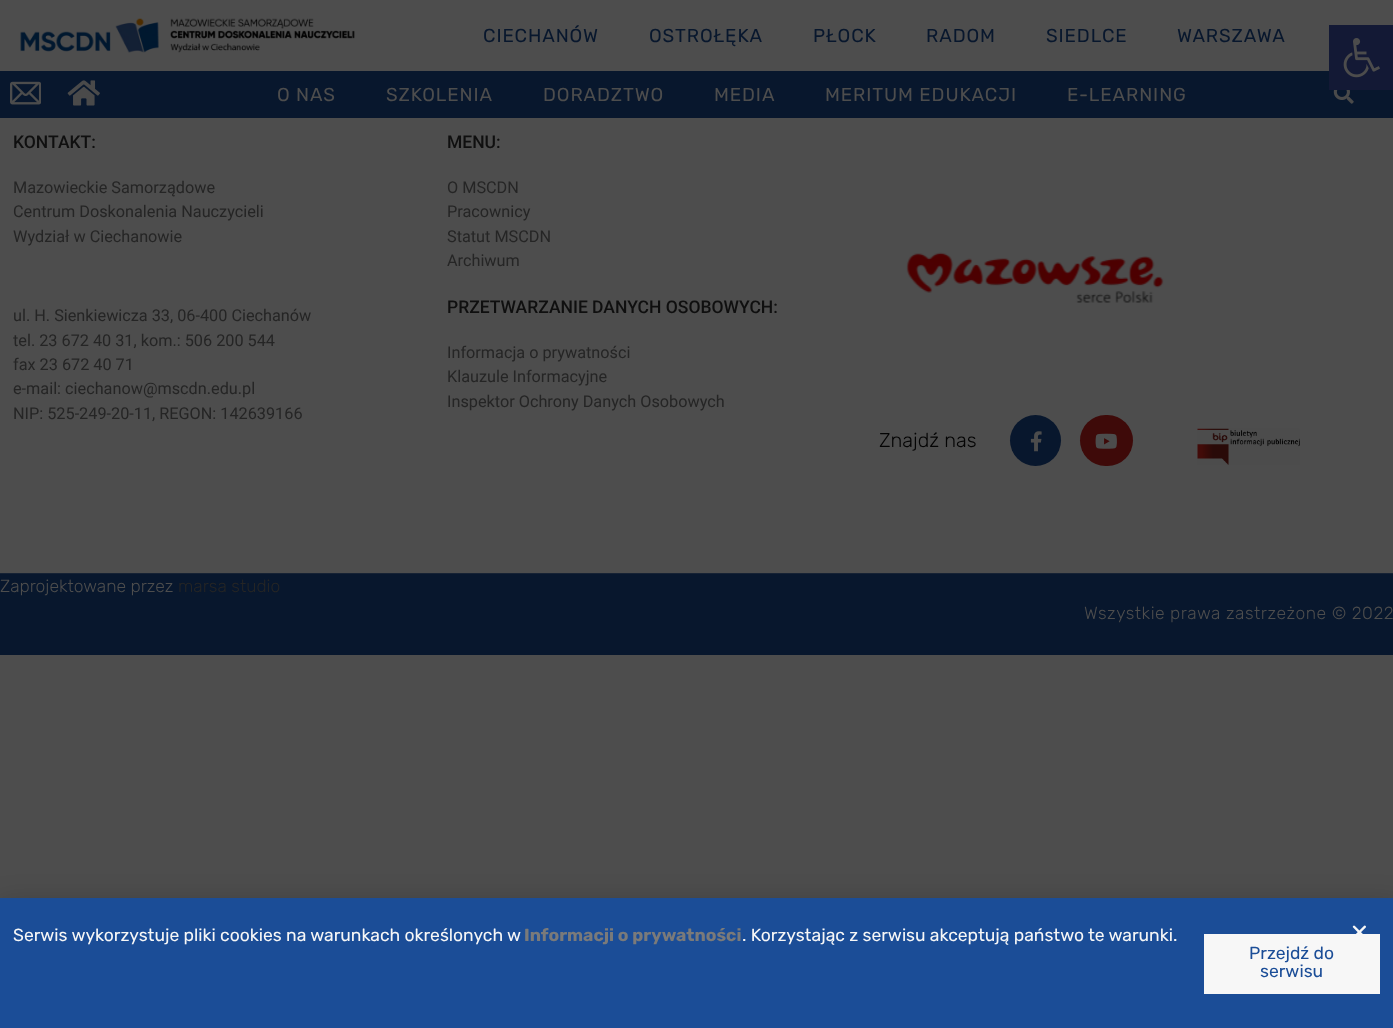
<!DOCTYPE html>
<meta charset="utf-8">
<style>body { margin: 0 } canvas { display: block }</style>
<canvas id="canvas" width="1393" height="1028"></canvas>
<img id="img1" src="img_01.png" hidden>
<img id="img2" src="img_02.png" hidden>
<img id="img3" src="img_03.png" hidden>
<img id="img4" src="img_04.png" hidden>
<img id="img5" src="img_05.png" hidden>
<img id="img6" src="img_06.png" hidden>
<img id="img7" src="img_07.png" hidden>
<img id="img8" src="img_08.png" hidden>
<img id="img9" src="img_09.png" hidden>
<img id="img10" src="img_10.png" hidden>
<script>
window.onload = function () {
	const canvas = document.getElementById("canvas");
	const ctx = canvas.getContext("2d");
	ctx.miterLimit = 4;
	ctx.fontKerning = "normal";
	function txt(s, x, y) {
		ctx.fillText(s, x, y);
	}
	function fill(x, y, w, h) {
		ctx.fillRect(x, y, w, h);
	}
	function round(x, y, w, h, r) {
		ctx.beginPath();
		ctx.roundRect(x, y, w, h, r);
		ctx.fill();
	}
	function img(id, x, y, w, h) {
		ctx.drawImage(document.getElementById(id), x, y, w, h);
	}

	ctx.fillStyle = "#4D4D4D";
	fill(0, 0, 1393, 1028);
	img("img1", 20, 18, 335, 35);
	ctx.fillStyle = "#08172D";
	fill(0, 71, 1393, 47);
	img("img2", 10, 81, 31, 24);
	img("img3", 67, 80, 33, 26);
	img("img4", 1333, 90, 21, 14);
	ctx.fillStyle = "#131935";
	fill(1329, 25, 64, 65);
	img("img5", 1343, 38, 37, 40);
	img("img6", 906, 252, 258, 51);
	ctx.fillStyle = "#08172D";
	ctx.beginPath();
	ctx.arc(1035.5, 440.5, 25.5, 0, Math.PI * 2);
	ctx.fill();
	img("img7", 1030, 431, 12, 21);
	ctx.fillStyle = "#3E0A09";
	round(1080, 415, 53, 51, 25.5);
	img("img8", 1095, 433, 22, 16);
	img("img9", 1197, 428, 103, 37);
	ctx.fillStyle = "#08172D";
	fill(0, 574, 1393, 81);
	ctx.fillStyle = "#162234";
	fill(0, 573, 1393, 1);
	ctx.fillStyle = "rgba(0, 0, 0, 0.2)";
	ctx.filter = "blur(14.5px)";
	ctx.beginPath();
	ctx.rect(-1, 904, 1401, 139);
	ctx.fill();
	ctx.filter = "none";
	ctx.fillStyle = "#1B4D97";
	fill(0, 898, 1393, 130);
	ctx.fillStyle = "#F7F7F7";
	fill(1204, 934, 176, 60);
	img("img10", 1352, 925, 14, 9);
	ctx.letterSpacing = "0.9px";
	ctx.font = "18.75px Rubik";
	ctx.fillStyle = "#08172D";
	txt("CIECHANÓW", 483, 42);
	txt("OSTROŁĘKA", 649, 42);
	txt("PŁOCK", 813, 42);
	txt("RADOM", 926, 42);
	txt("SIEDLCE", 1046, 42);
	txt("WARSZAWA", 1177, 42);
	ctx.fillStyle = "#4D4D4D";
	txt("O NAS", 277, 101);
	txt("SZKOLENIA", 386, 101);
	txt("DORADZTWO", 543, 101);
	txt("MEDIA", 714, 101);
	txt("MERITUM EDUKACJI", 825, 101);
	txt("E-LEARNING", 1067, 101);
	ctx.letterSpacing = "0px";
	ctx.font = "500 17.5px Roboto";
	ctx.fillStyle = "#0F0F0F";
	txt("KONTAKT:", 13, 148);
	ctx.font = "16.25px Roboto";
	ctx.fillStyle = "#252525";
	txt("Mazowieckie Samorządowe", 13, 193);
	txt("Centrum Doskonalenia Nauczycieli", 13, 217);
	txt("Wydział w Ciechanowie", 13, 242);
	txt("ul. H. Sienkiewicza 33, 06-400 Ciechanów", 13, 321);
	txt("tel. 23 672 40 31, kom.: 506 200 544", 13, 346);
	txt("fax 23 672 40 71", 13, 370);
	txt("e-mail: ciechanow@mscdn.edu.pl", 13, 394);
	txt("NIP: 525-249-20-11, REGON: 142639166", 13, 419);
	ctx.font = "500 17.5px Roboto";
	ctx.fillStyle = "#0F0F0F";
	txt("MENU:", 447, 148);
	ctx.font = "16.25px Roboto";
	ctx.fillStyle = "#252525";
	txt("O MSCDN", 447, 193);
	txt("Pracownicy", 447, 217);
	txt("Statut MSCDN", 447, 242);
	txt("Archiwum", 447, 266);
	ctx.font = "500 17.5px Roboto";
	ctx.fillStyle = "#0F0F0F";
	txt("PRZETWARZANIE DANYCH OSOBOWYCH:", 447, 313);
	ctx.font = "16.25px Roboto";
	ctx.fillStyle = "#252525";
	txt("Informacja o prywatności", 447, 358);
	txt("Klauzule Informacyjne", 447, 382);
	txt("Inspektor Ochrony Danych Osobowych", 447, 407);
	ctx.font = "300 20px Rubik";
	ctx.fillStyle = "#040404";
	txt("Znajdź nas", 879, 447);
	ctx.font = "300 17.5px Rubik";
	ctx.fillStyle = "#4D4D4D";
	txt("Zaprojektowane przez", 0, 592);
	ctx.fillStyle = "#252525";
	txt("marsa studio", 178, 592);
	ctx.letterSpacing = "0.5px";
	ctx.fillStyle = "#4D4D4D";
	txt("Wszystkie prawa zastrzeżone © 2022", 1084, 619);
	ctx.letterSpacing = "0px";
	ctx.font = "17.5px Rubik";
	ctx.fillStyle = "#F7F7F7";
	txt("Serwis wykorzystuje pliki cookies na warunkach określonych w", 13, 941);
	ctx.font = "bold 17.5px Rubik";
	ctx.fillStyle = "#7A7A7A";
	txt("Informacji o prywatności", 524, 941);
	ctx.font = "17.5px Rubik";
	ctx.fillStyle = "#F7F7F7";
	txt(". Korzystając z serwisu akceptują państwo te warunki.", 742, 941);
	ctx.fillStyle = "#1B4D97";
	txt("Przejdź do", 1249, 959);
	txt("serwisu", 1260, 977);
};
</script>
